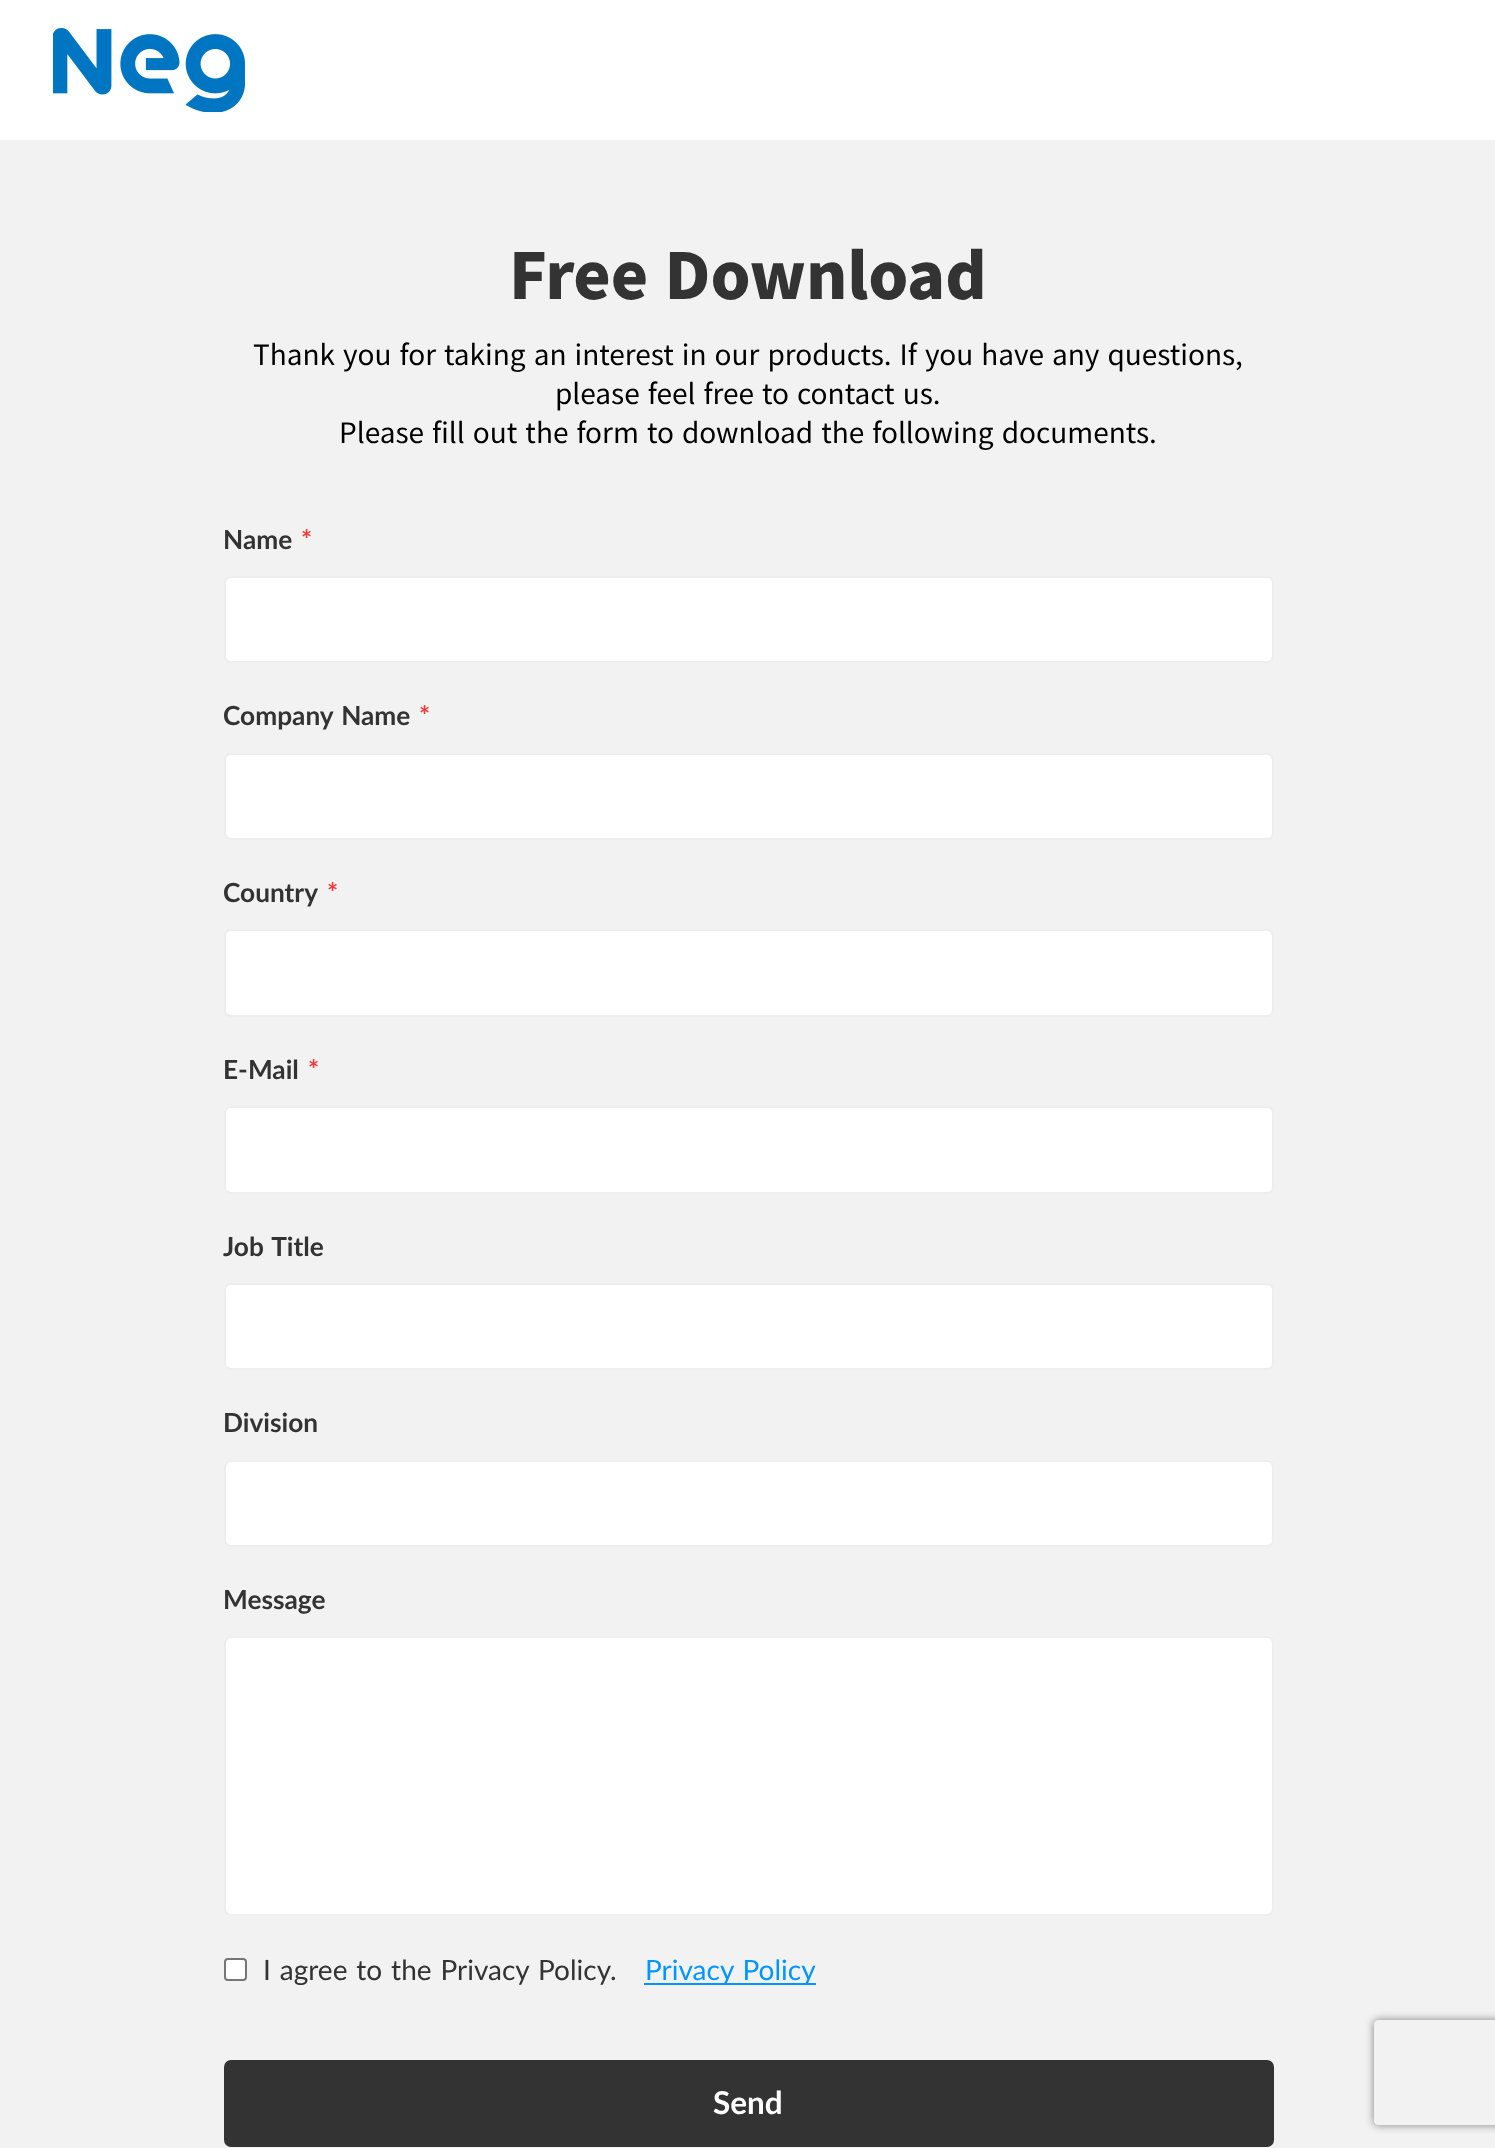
<!DOCTYPE html>
<meta charset="utf-8">
<style>body { margin: 0 } canvas { display: block }</style>
<canvas id="canvas" width="1495" height="2148"></canvas>
<img id="img1" src="img_01.png" hidden>
<script>
window.onload = function () {
	const canvas = document.getElementById("canvas");
	const ctx = canvas.getContext("2d");
	ctx.miterLimit = 4;
	ctx.fontKerning = "normal";
	function txt(s, x, y) {
		ctx.fillText(s, x, y);
	}
	function fill(x, y, w, h) {
		ctx.fillRect(x, y, w, h);
	}
	function round(x, y, w, h, r) {
		ctx.beginPath();
		ctx.roundRect(x, y, w, h, r);
		ctx.fill();
	}
	function img(id, x, y, w, h) {
		ctx.drawImage(document.getElementById(id), x, y, w, h);
	}

	ctx.fillStyle = "#FFFFFF";
	fill(0, 0, 1495, 2148);
	img("img1", 53, 28, 192, 84);
	ctx.fillStyle = "#F2F2F2";
	fill(0, 140, 1495, 2008);
	ctx.fillStyle = "#FFFFFF";
	ctx.beginPath();
	ctx.roundRect(225, 577, 1048, 85, 6);
	ctx.fill();
	ctx.strokeStyle = "#EEEEEE";
	ctx.lineWidth = 2;
	ctx.stroke();
	ctx.beginPath();
	ctx.roundRect(225, 754, 1048, 85, 6);
	ctx.fill();
	ctx.stroke();
	ctx.beginPath();
	ctx.roundRect(225, 930, 1048, 86, 6);
	ctx.fill();
	ctx.stroke();
	ctx.beginPath();
	ctx.roundRect(225, 1107, 1048, 86, 6);
	ctx.fill();
	ctx.stroke();
	ctx.beginPath();
	ctx.roundRect(225, 1284, 1048, 85, 6);
	ctx.fill();
	ctx.stroke();
	ctx.beginPath();
	ctx.roundRect(225, 1461, 1048, 85, 6);
	ctx.fill();
	ctx.stroke();
	ctx.beginPath();
	ctx.roundRect(225, 1637, 1048, 278, 6);
	ctx.fill();
	ctx.stroke();
	ctx.beginPath();
	ctx.roundRect(225, 1959, 21, 21, 3);
	ctx.fill();
	ctx.strokeStyle = "#767676";
	ctx.stroke();
	ctx.fillStyle = "#0095FF";
	fill(644, 1983, 172, 2);
	ctx.fillStyle = "#333333";
	round(224, 2060, 1050, 87, 7);
	ctx.save();
	ctx.beginPath();
	ctx.moveTo(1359, 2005);
	ctx.lineTo(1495, 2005);
	ctx.lineTo(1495, 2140);
	ctx.lineTo(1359, 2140);
	ctx.closePath();
	ctx.moveTo(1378, 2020);
	ctx.lineTo(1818, 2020);
	ctx.bezierCurveTo(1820, 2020, 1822, 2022, 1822, 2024);
	ctx.lineTo(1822, 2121);
	ctx.bezierCurveTo(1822, 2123, 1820, 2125, 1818, 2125);
	ctx.lineTo(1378, 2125);
	ctx.bezierCurveTo(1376, 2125, 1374, 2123, 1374, 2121);
	ctx.lineTo(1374, 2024);
	ctx.bezierCurveTo(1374, 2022, 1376, 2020, 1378, 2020);
	ctx.closePath();
	ctx.clip("evenodd");
	ctx.fillStyle = "#808080";
	ctx.filter = "blur(4.5px)";
	ctx.beginPath();
	ctx.roundRect(1374, 2020, 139, 105, 4);
	ctx.fill();
	ctx.filter = "none";
	ctx.restore();
	ctx.wordSpacing = "1.75px";
	ctx.font = "900 63px Noto Sans JP";
	txt("Free Download", 509, 299);
	ctx.font = "28px Noto Sans JP";
	ctx.fillStyle = "#000000";
	txt("Thank you for taking an interest in our products. If you have any questions,", 253, 365);
	txt("please feel free to contact us.", 555, 404);
	txt("Please fill out the form to download the following documents.", 339, 443);
	ctx.wordSpacing = "0px";
	ctx.font = "bold 26.25px Lato";
	ctx.fillStyle = "#333333";
	txt("Name", 223, 549);
	ctx.fillStyle = "#F23A3C";
	txt("*", 301, 549);
	ctx.wordSpacing = "1.75px";
	ctx.fillStyle = "#333333";
	txt("Company Name", 223, 725);
	ctx.wordSpacing = "0px";
	ctx.fillStyle = "#F23A3C";
	txt("*", 419, 725);
	ctx.fillStyle = "#333333";
	txt("Country", 223, 902);
	ctx.fillStyle = "#F23A3C";
	txt("*", 327, 902);
	ctx.fillStyle = "#333333";
	txt("E-Mail", 223, 1079);
	ctx.fillStyle = "#F23A3C";
	txt("*", 308, 1079);
	ctx.wordSpacing = "1.75px";
	ctx.fillStyle = "#333333";
	txt("Job Title", 223, 1256);
	ctx.wordSpacing = "0px";
	txt("Division", 223, 1432);
	txt("Message", 223, 1609);
	ctx.wordSpacing = "1.75px";
	ctx.font = "28px Lato";
	txt("I agree to the Privacy Policy.", 263, 1980);
	ctx.fillStyle = "#0095FF";
	txt("Privacy Policy", 645, 1980);
	ctx.wordSpacing = "0px";
	ctx.font = "bold 31.5px Lato";
	ctx.fillStyle = "#FFFFFF";
	txt("Send", 713, 2114);
};
</script>
